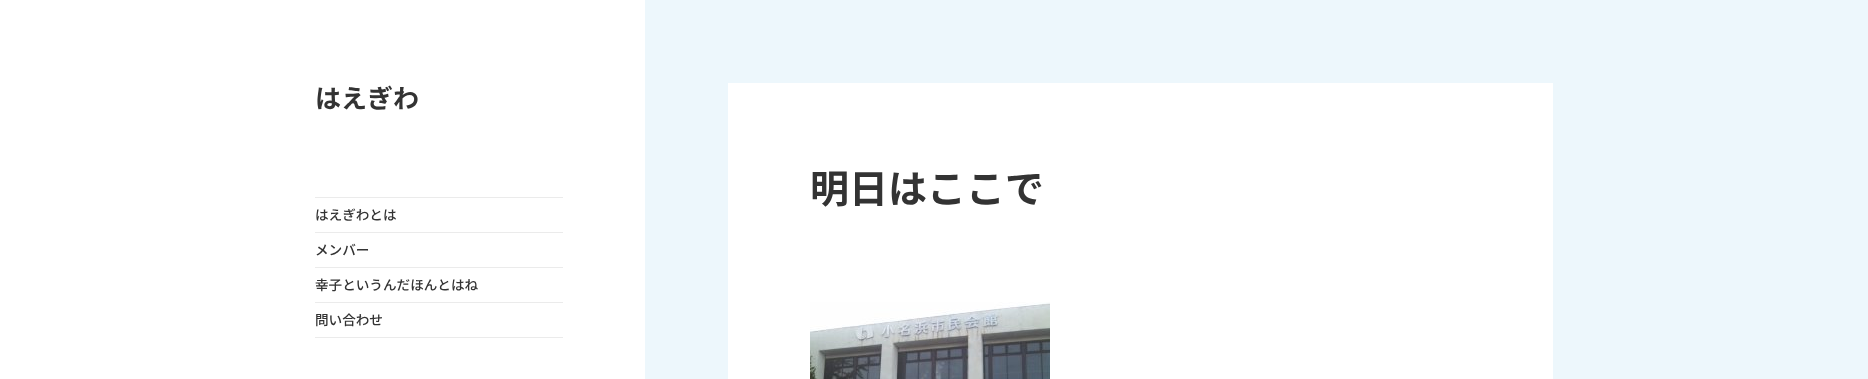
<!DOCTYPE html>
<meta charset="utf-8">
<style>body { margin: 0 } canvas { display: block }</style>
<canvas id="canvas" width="1868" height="379"></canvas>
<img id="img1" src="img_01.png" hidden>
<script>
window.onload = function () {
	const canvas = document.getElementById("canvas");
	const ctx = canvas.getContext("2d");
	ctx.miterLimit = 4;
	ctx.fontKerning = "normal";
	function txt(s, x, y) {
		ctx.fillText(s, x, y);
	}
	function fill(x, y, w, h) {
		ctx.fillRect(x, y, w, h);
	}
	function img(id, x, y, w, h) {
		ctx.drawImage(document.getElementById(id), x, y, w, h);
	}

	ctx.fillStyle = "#EDF7FC";
	fill(0, 0, 1868, 379);
	ctx.fillStyle = "#FFFFFF";
	fill(0, 0, 645, 379);
	ctx.fillStyle = "#EBEBEB";
	fill(315, 197, 248, 1);
	fill(315, 337, 248, 1);
	fill(315, 232, 248, 1);
	fill(315, 267, 248, 1);
	fill(315, 302, 248, 1);
	ctx.fillStyle = "#FFFFFF";
	fill(728, 83, 825, 296);
	img("img1", 810, 302, 240, 77);
	ctx.font = "bold 26px Noto Sans JP";
	ctx.fillStyle = "#333333";
	txt("はえぎわ", 315, 108);
	ctx.font = "500 13.6px Noto Sans JP";
	txt("はえぎわとは", 315, 220);
	txt("メンバー", 315, 255);
	txt("幸子というんだほんとはね", 315, 290);
	txt("問い合わせ", 315, 325);
	ctx.font = "bold 39px Noto Sans JP";
	txt("明日はここで", 810, 203);
};
</script>
